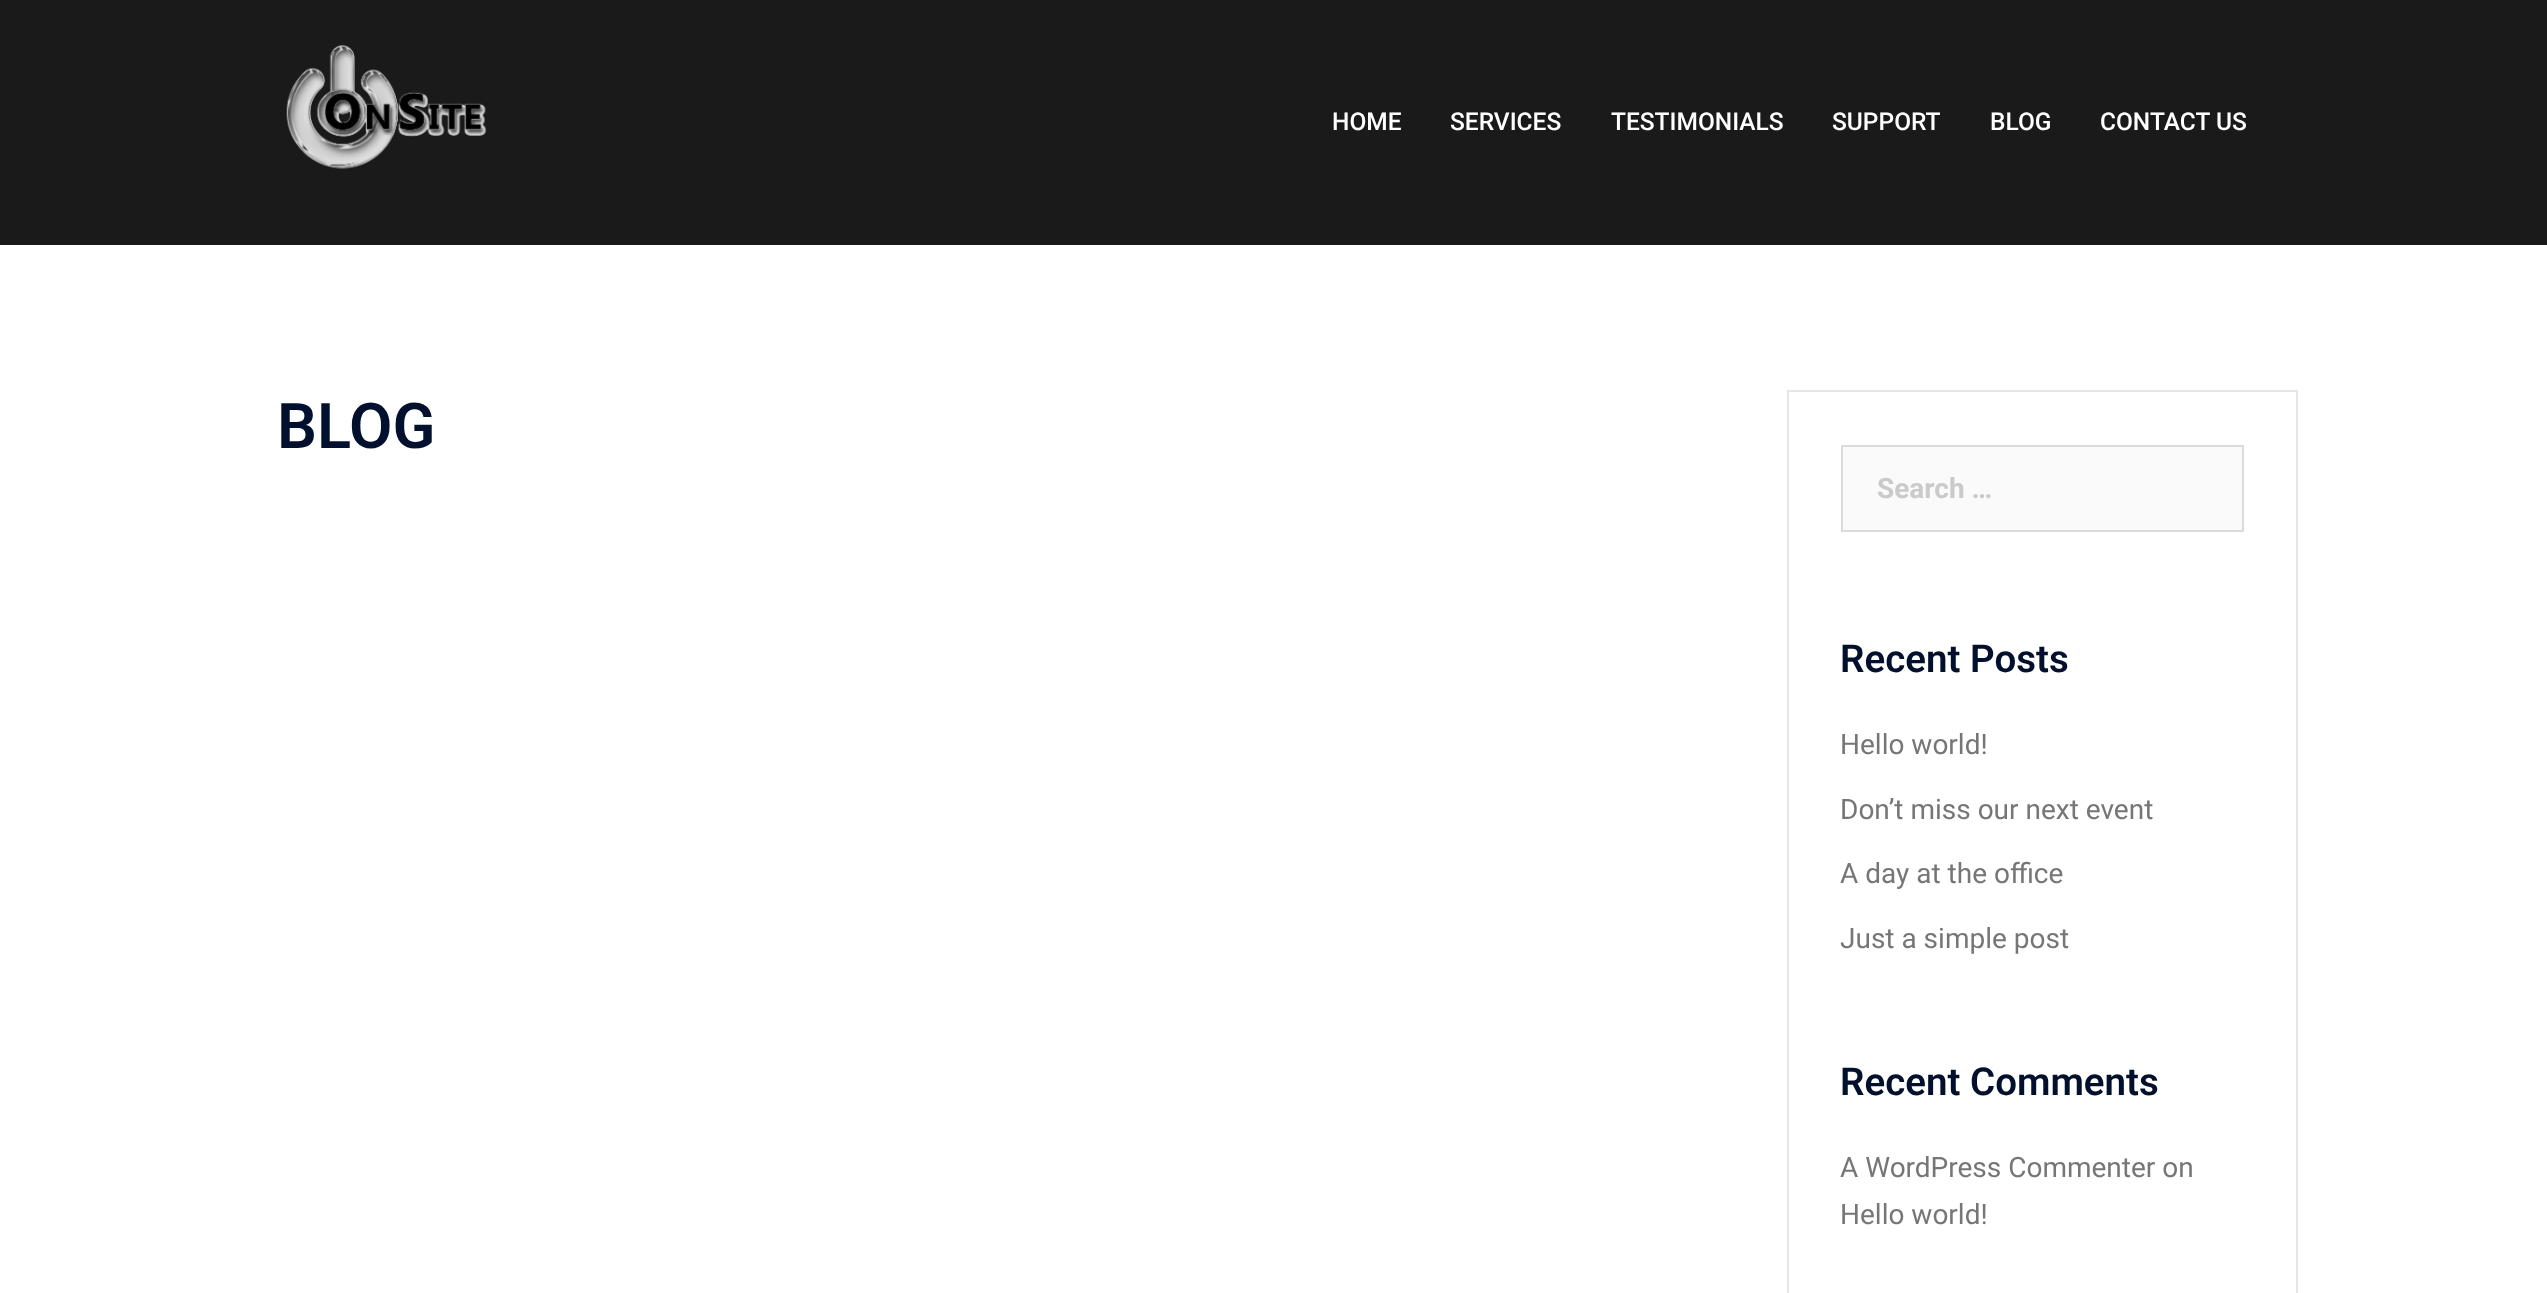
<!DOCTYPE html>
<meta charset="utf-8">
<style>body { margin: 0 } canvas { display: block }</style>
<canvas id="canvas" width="2547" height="1293"></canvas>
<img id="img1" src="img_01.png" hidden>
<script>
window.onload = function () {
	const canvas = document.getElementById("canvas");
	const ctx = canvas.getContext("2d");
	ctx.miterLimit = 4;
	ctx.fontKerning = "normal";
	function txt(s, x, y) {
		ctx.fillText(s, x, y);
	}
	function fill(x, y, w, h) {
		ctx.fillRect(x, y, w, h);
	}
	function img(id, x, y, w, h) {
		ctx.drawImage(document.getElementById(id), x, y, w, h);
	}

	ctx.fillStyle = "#FFFFFF";
	fill(0, 0, 2547, 1293);
	ctx.fillStyle = "#1A1A1A";
	fill(0, 0, 2547, 245);
	img("img1", 286, 45, 201, 124);
	ctx.strokeStyle = "#E6E6E6";
	ctx.lineWidth = 2;
	ctx.strokeRect(1788, 391, 509, 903);
	ctx.fillStyle = "#FAFAFA";
	ctx.beginPath();
	ctx.rect(1842, 446, 401, 85);
	ctx.fill();
	ctx.strokeStyle = "#DBDBDB";
	ctx.stroke();
	ctx.font = "500 24.5px Roboto";
	ctx.fillStyle = "#FFFFFF";
	txt("HOME", 1332, 130);
	txt("SERVICES", 1450, 130);
	txt("TESTIMONIALS", 1611, 130);
	txt("SUPPORT", 1832, 130);
	txt("BLOG", 1990, 130);
	txt("CONTACT US", 2100, 130);
	ctx.font = "600 63px Roboto";
	ctx.fillStyle = "#00102E";
	txt("BLOG", 277, 448);
	ctx.font = "bold 28px Roboto";
	ctx.fillStyle = "#CACACA";
	txt("Search …", 1877, 498);
	ctx.font = "600 38.5px Roboto";
	ctx.fillStyle = "#00102E";
	txt("Recent Posts", 1840, 672);
	ctx.font = "28px Roboto";
	ctx.fillStyle = "#767676";
	txt("Hello world!", 1840, 754);
	txt("Don’t miss our next event", 1840, 819);
	txt("A day at the office", 1840, 883);
	txt("Just a simple post", 1840, 948);
	ctx.font = "600 38.5px Roboto";
	ctx.fillStyle = "#00102E";
	txt("Recent Comments", 1840, 1095);
	ctx.font = "28px Roboto";
	ctx.fillStyle = "#767676";
	txt("A WordPress Commenter on", 1840, 1177);
	txt("Hello world!", 1840, 1224);
};
</script>
